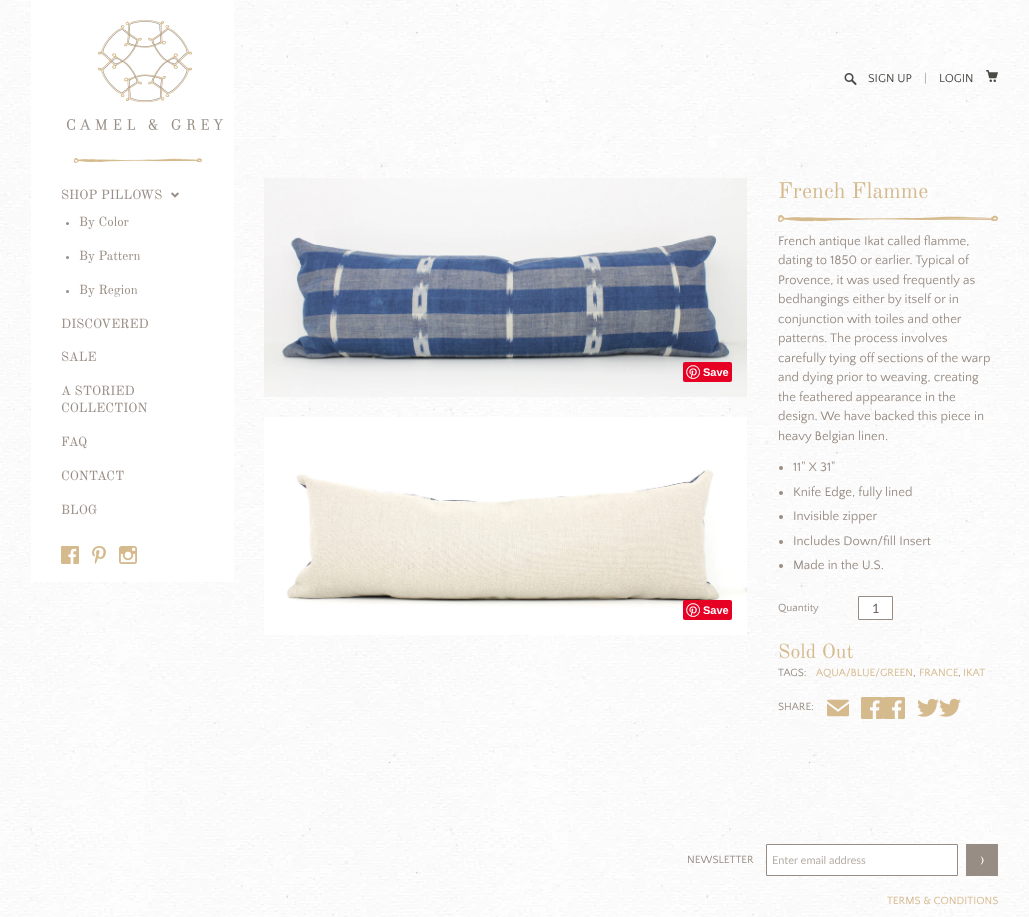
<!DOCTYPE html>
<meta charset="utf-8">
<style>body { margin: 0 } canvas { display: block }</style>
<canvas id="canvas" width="1029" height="917"></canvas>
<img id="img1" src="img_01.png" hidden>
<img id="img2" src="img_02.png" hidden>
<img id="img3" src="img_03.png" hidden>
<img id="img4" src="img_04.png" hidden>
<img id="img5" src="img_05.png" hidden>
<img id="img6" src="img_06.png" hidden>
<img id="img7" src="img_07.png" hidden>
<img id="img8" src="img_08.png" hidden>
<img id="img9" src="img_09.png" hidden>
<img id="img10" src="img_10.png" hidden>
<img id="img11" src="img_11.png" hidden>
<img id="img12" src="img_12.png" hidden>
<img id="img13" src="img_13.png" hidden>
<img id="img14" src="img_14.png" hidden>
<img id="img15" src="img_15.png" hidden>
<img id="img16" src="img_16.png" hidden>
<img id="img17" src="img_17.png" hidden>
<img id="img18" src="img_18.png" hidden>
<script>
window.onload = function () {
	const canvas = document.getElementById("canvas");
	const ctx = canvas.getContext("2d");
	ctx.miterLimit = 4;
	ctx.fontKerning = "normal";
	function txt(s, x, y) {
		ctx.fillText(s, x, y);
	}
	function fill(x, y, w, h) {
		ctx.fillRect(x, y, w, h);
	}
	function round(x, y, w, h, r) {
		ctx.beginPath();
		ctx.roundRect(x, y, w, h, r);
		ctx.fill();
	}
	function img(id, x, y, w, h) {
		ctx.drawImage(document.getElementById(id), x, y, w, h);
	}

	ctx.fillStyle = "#FFFFFF";
	fill(0, 0, 1029, 917);
	img("img1", 0, 0, 1029, 917);
	fill(31, 0, 203, 582);
	img("img2", 67, 20, 156, 110);
	img("img3", 844, 73, 13, 12);
	img("img4", 986, 70, 12, 12);
	img("img5", 74, 158, 128, 5);
	img("img6", 171, 192, 8, 6);
	ctx.fillStyle = "#988D84";
	ctx.beginPath();
	ctx.arc(67.5, 223.5, 1.5, 0, Math.PI * 2);
	ctx.fill();
	ctx.beginPath();
	ctx.arc(67.5, 257.5, 1.5, 0, Math.PI * 2);
	ctx.fill();
	ctx.beginPath();
	ctx.arc(67.5, 291.5, 1.5, 0, Math.PI * 2);
	ctx.fill();
	img("img7", 61, 546, 18, 18);
	img("img8", 92, 546, 14, 18);
	img("img9", 119, 546, 18, 18);
	img("img10", 264, 178, 483, 219);
	ctx.fillStyle = "#E60023";
	round(683, 362, 49, 20, 2);
	img("img11", 686, 365, 14, 14);
	img("img12", 264, 417, 483, 218);
	round(683, 600, 49, 20, 2);
	img("img11", 686, 603, 14, 14);
	img("img13", 778, 215, 220, 7);
	ctx.fillStyle = "#988D84";
	ctx.beginPath();
	ctx.arc(781, 468, 2, 0, Math.PI * 2);
	ctx.fill();
	ctx.beginPath();
	ctx.arc(781, 493, 2, 0, Math.PI * 2);
	ctx.fill();
	ctx.beginPath();
	ctx.arc(781, 517, 2, 0, Math.PI * 2);
	ctx.fill();
	ctx.beginPath();
	ctx.arc(781, 542, 2, 0, Math.PI * 2);
	ctx.fill();
	ctx.beginPath();
	ctx.arc(781, 566, 2, 0, Math.PI * 2);
	ctx.fill();
	ctx.fillStyle = "#FFFFFF";
	ctx.beginPath();
	ctx.rect(858.5, 596.5, 34, 23);
	ctx.fill();
	ctx.strokeStyle = "#988D84";
	ctx.stroke();
	img("img14", 827, 699, 22, 18);
	img("img15", 861, 697, 22, 22);
	img("img16", 883, 697, 22, 22);
	img("img17", 917, 698, 22, 19);
	img("img18", 939, 698, 22, 19);
	ctx.beginPath();
	ctx.rect(766.5, 844.5, 191, 31);
	ctx.fill();
	ctx.stroke();
	ctx.fillStyle = "#988D84";
	fill(966, 844, 32, 32);
	ctx.font = "12px Quattrocento Sans";
	ctx.fillStyle = "#494945";
	txt("SIGN UP", 868, 82);
	ctx.fillStyle = "#A3A2A1";
	txt("|", 924, 82);
	ctx.fillStyle = "#494945";
	txt("LOGIN", 939, 82);
	ctx.font = "13px Old Standard TT";
	ctx.fillStyle = "#988D84";
	txt("SHOP PILLOWS", 61, 199);
	txt("By Color", 79, 226);
	txt("By Pattern", 79, 260);
	txt("By Region", 79, 294);
	txt("DISCOVERED", 61, 328);
	txt("SALE", 61, 361);
	txt("A STORIED", 61, 395);
	txt("COLLECTION", 61, 412);
	txt("FAQ", 61, 446);
	txt("CONTACT", 61, 480);
	txt("BLOG", 61, 514);
	ctx.font = "bold 11px Liberation Sans";
	ctx.fillStyle = "#FFFFFF";
	txt("Save", 703, 376);
	txt("Save", 703, 614);
	ctx.font = "22px Old Standard TT";
	ctx.fillStyle = "#D5BA8E";
	txt("French Flamme", 778, 198);
	ctx.font = "13px Quattrocento Sans";
	ctx.fillStyle = "#988D84";
	txt("French antique Ikat called flamme,", 778, 245);
	txt("dating to 1850 or earlier. Typical of", 778, 264);
	txt("Provence, it was used frequently as", 778, 284);
	txt("bedhangings either by itself or in", 778, 303);
	txt("conjunction with toiles and other", 778, 323);
	txt("patterns. The process involves", 778, 342);
	txt("carefully tying off sections of the warp", 778, 362);
	txt("and dying prior to weaving, creating", 778, 381);
	txt("the feathered appearance in the", 778, 401);
	txt("design. We have backed this piece in", 778, 420);
	txt("heavy Belgian linen.", 778, 440);
	txt("11\" X 31\"", 793, 471);
	txt("Knife Edge, fully lined", 793, 496);
	txt("Invisible zipper", 793, 520);
	txt("Includes Down/fill Insert", 793, 545);
	txt("Made in the U.S.", 793, 569);
	ctx.font = "11px Quattrocento Sans";
	txt("Quantity", 778, 611);
	ctx.font = "13px Lato";
	ctx.fillStyle = "#706262";
	txt("1", 872, 613);
	ctx.font = "20px Old Standard TT";
	ctx.fillStyle = "#D5BA8E";
	txt("Sold Out", 778, 658);
	ctx.font = "11px Quattrocento Sans";
	ctx.fillStyle = "#988D84";
	txt("TAGS:", 778, 676);
	ctx.fillStyle = "#D5BA8E";
	txt("AQUA/BLUE/GREEN", 816, 676);
	txt("FRANCE", 919, 676);
	txt("IKAT", 963, 676);
	ctx.fillStyle = "#988D84";
	txt(",", 913, 676);
	txt(",", 958, 676);
	txt("SHARE:", 778, 710);
	txt("NEWSLETTER", 687, 863);
	ctx.font = "11px Lato";
	ctx.fillStyle = "#B7AFA9";
	txt("Enter email address", 772, 864);
	ctx.font = "20px Old Standard TT";
	ctx.fillStyle = "#FFFFFF";
	txt("›", 979, 865);
	ctx.font = "11px Quattrocento Sans";
	ctx.fillStyle = "#D5BA8E";
	txt("TERMS & CONDITIONS", 887, 904);
};
</script>
